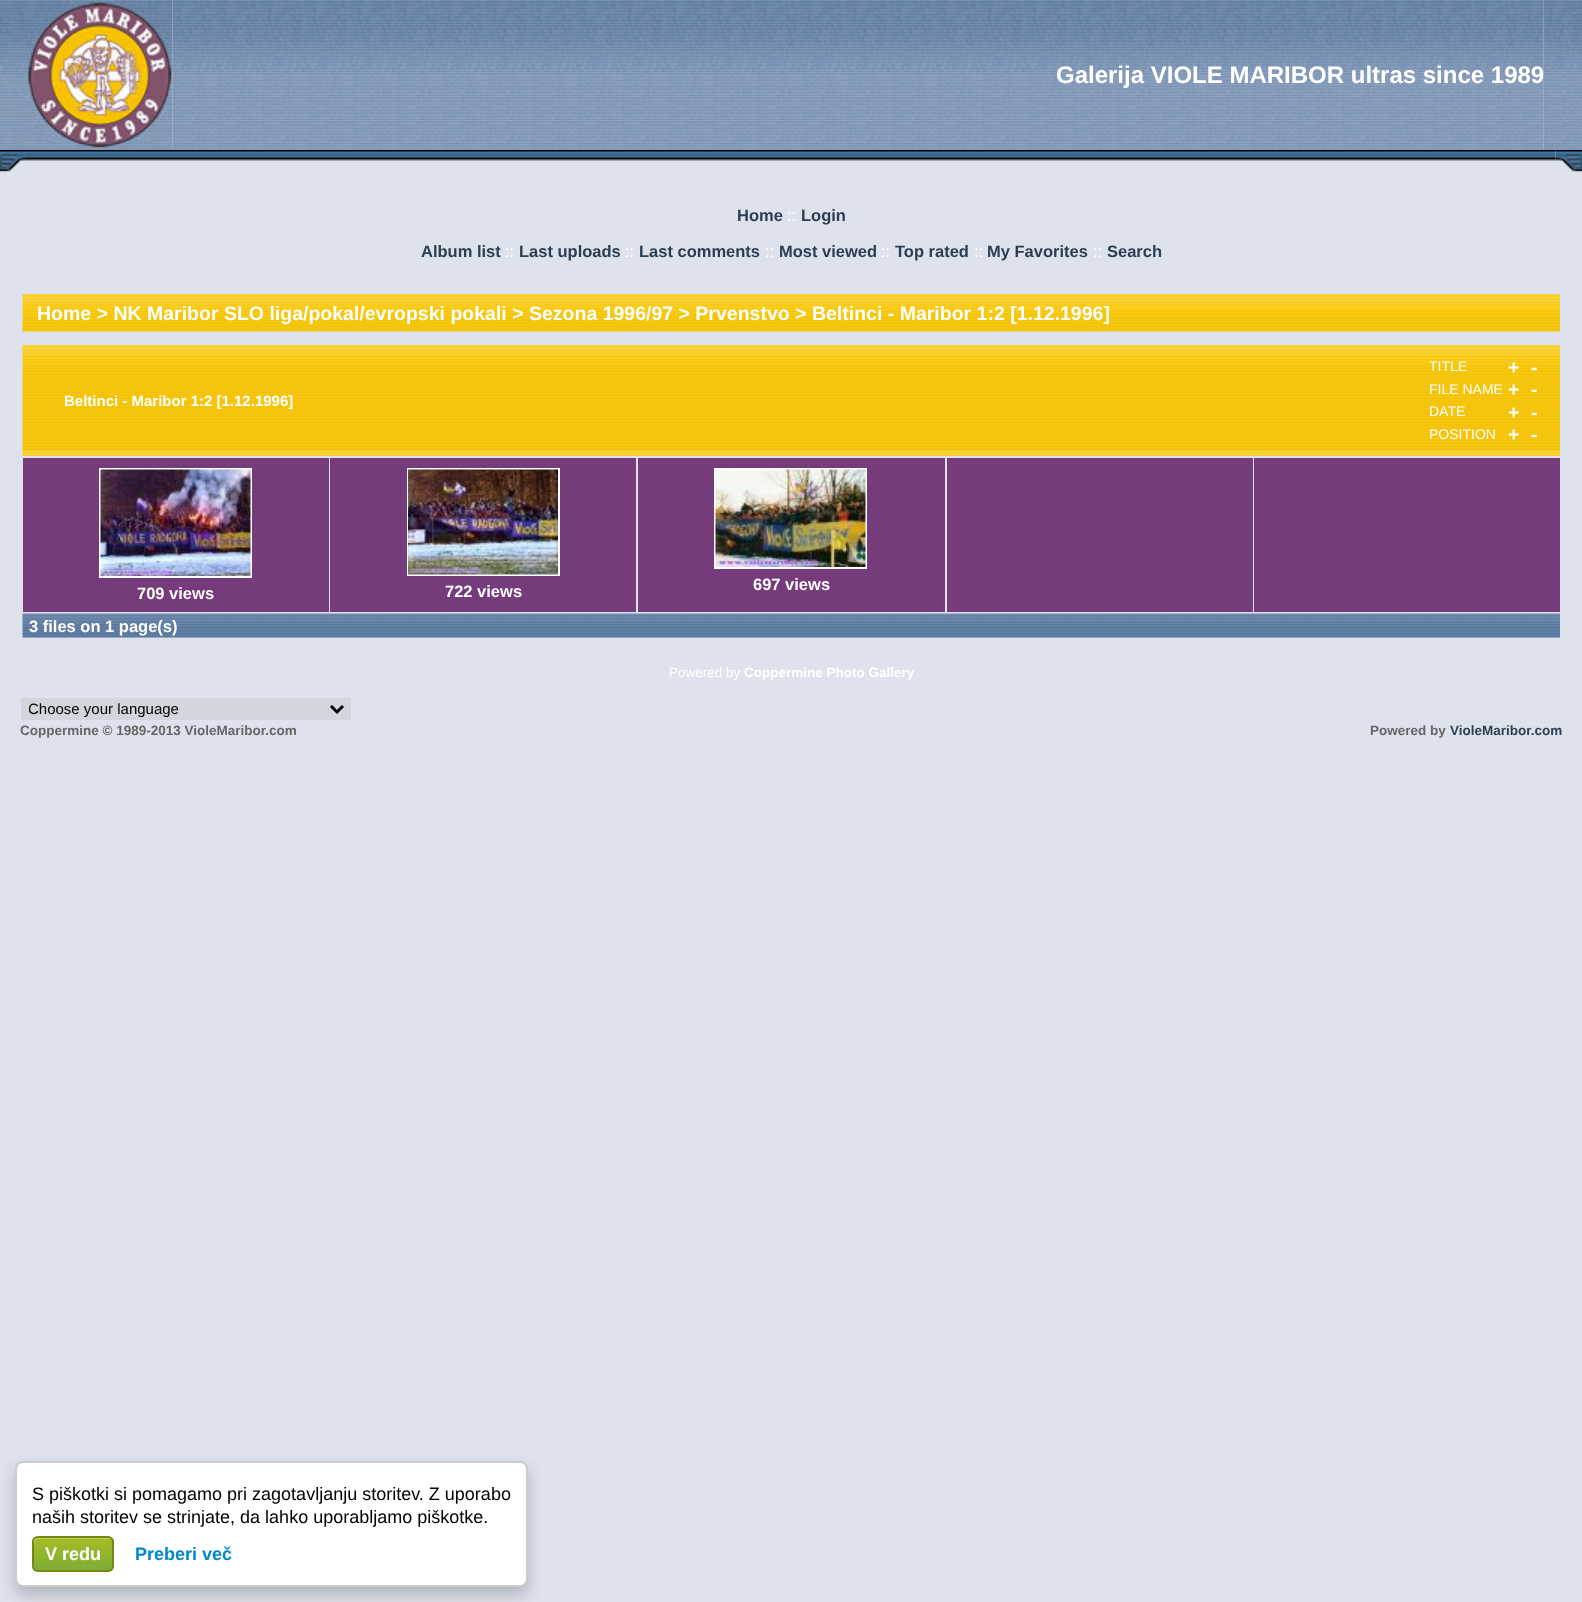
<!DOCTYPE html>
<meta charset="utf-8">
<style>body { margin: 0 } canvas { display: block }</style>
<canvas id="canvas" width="1582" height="1602"></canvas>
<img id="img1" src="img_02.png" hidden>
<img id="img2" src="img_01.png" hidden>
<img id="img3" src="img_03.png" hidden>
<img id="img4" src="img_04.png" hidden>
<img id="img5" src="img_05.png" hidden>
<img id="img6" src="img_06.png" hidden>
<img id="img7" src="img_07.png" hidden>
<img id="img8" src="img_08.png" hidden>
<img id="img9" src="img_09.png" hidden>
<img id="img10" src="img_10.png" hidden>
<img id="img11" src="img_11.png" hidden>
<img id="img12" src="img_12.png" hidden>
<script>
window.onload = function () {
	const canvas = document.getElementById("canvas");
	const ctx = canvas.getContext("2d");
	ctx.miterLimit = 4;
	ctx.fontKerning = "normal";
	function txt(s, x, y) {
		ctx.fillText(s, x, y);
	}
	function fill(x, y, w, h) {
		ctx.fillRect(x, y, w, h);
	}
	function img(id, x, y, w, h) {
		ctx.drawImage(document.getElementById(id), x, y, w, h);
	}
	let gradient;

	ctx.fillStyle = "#DDE2EC";
	fill(0, 0, 1582, 1602);
	img("img1", 172, 0, 1372, 150);
	img("img2", 0, 0, 173, 150);
	img("img3", 1543, 0, 39, 150);
	img("img4", 0, 150, 27, 22);
	img("img5", 27, 150, 1529, 11);
	img("img6", 1555, 150, 27, 22);
	img("img7", 22, 294, 1538, 38);
	img("img8", 22, 345, 1538, 111);
	ctx.fillStyle = "#763B7B";
	fill(23, 458, 306, 154);
	ctx.strokeStyle = "#FFFFFF";
	ctx.lineWidth = 2;
	ctx.strokeRect(100, 469, 151, 108);
	img("img9", 100, 469, 151, 107);
	fill(330, 458, 306, 154);
	ctx.strokeRect(408, 469, 151, 106);
	img("img10", 408, 469, 150, 106);
	fill(638, 458, 307, 154);
	ctx.strokeRect(715, 469, 151, 99);
	img("img11", 715, 469, 151, 98);
	fill(947, 458, 306, 154);
	fill(1254, 458, 306, 154);
	img("img12", 22, 613, 1538, 25);
	ctx.fillStyle = "#D1D7DC";
	fill(21, 698, 330, 22);
	ctx.beginPath();
	ctx.moveTo(331, 706);
	ctx.lineTo(337, 712);
	ctx.lineTo(343, 706);
	ctx.strokeStyle = "#000000";
	ctx.lineWidth = 3;
	ctx.stroke();
	ctx.fillStyle = "rgba(0, 0, 0, 0.2)";
	ctx.filter = "blur(7.5px)";
	ctx.beginPath();
	ctx.roundRect(15, 1469, 513, 126, 8);
	ctx.fill();
	ctx.filter = "none";
	ctx.fillStyle = "#FFFFFF";
	ctx.beginPath();
	ctx.roundRect(16, 1462, 511, 124, 7);
	ctx.fill();
	ctx.strokeStyle = "#CCCCCC";
	ctx.lineWidth = 2;
	ctx.stroke();
	ctx.save();
	ctx.beginPath();
	ctx.roundRect(32, 1536, 82, 36, 6);
	ctx.clip();
	gradient = ctx.createLinearGradient(73, 1538, 73, 1571);
	gradient.addColorStop(0, "#A5BD24");
	gradient.addColorStop(1, "#7DAC38");
	ctx.fillStyle = gradient;
	fill(32, 1538, 82, 33);
	ctx.restore();
	ctx.fillStyle = "rgba(255, 255, 255, 0.3)";
	ctx.beginPath();
	ctx.moveTo(39, 1539);
	ctx.lineTo(111, 1539);
	ctx.bezierCurveTo(110, 1538, 109, 1538, 108, 1538);
	ctx.lineTo(38, 1538);
	ctx.bezierCurveTo(35, 1538, 33, 1540, 33, 1543);
	ctx.lineTo(33, 1566);
	ctx.bezierCurveTo(33, 1568, 34, 1569, 35, 1570);
	ctx.bezierCurveTo(33, 1568, 34, 1559, 34, 1556);
	ctx.bezierCurveTo(34, 1552, 32, 1539, 39, 1539);
	ctx.closePath();
	ctx.fill();
	ctx.beginPath();
	ctx.roundRect(33, 1537, 80, 34, 5);
	ctx.strokeStyle = "#778811";
	ctx.stroke();
	ctx.font = "bold 24px Liberation Sans";
	ctx.fillStyle = "#FFFFFF";
	txt("Galerija VIOLE MARIBOR ultras since 1989", 1056, 83);
	ctx.font = "bold 16.5px Liberation Sans";
	ctx.fillStyle = "#2C3E52";
	txt("Home", 737, 221);
	ctx.font = "16.5px Liberation Sans";
	ctx.fillStyle = "#FFFFFF";
	txt("::", 787, 221);
	ctx.font = "bold 16.5px Liberation Sans";
	ctx.fillStyle = "#2C3E52";
	txt("Login", 801, 221);
	txt("Album list", 421, 257);
	ctx.font = "16.5px Liberation Sans";
	ctx.fillStyle = "#FFFFFF";
	txt("::", 505, 257);
	ctx.font = "bold 16.5px Liberation Sans";
	ctx.fillStyle = "#2C3E52";
	txt("Last uploads", 519, 257);
	ctx.font = "16.5px Liberation Sans";
	ctx.fillStyle = "#FFFFFF";
	txt("::", 625, 257);
	ctx.font = "bold 16.5px Liberation Sans";
	ctx.fillStyle = "#2C3E52";
	txt("Last comments", 639, 257);
	ctx.font = "16.5px Liberation Sans";
	ctx.fillStyle = "#FFFFFF";
	txt("::", 765, 257);
	ctx.font = "bold 16.5px Liberation Sans";
	ctx.fillStyle = "#2C3E52";
	txt("Most viewed", 779, 257);
	ctx.font = "16.5px Liberation Sans";
	ctx.fillStyle = "#FFFFFF";
	txt("::", 881, 257);
	ctx.font = "bold 16.5px Liberation Sans";
	ctx.fillStyle = "#2C3E52";
	txt("Top rated", 895, 257);
	ctx.font = "16.5px Liberation Sans";
	ctx.fillStyle = "#FFFFFF";
	txt("::", 974, 257);
	ctx.font = "bold 16.5px Liberation Sans";
	ctx.fillStyle = "#2C3E52";
	txt("My Favorites", 987, 257);
	ctx.font = "16.5px Liberation Sans";
	ctx.fillStyle = "#FFFFFF";
	txt("::", 1093, 257);
	ctx.font = "bold 16.5px Liberation Sans";
	ctx.fillStyle = "#2C3E52";
	txt("Search", 1107, 257);
	ctx.font = "bold 19.5px Liberation Sans";
	ctx.fillStyle = "#FFFFFF";
	txt("Home > NK Maribor SLO liga/pokal/evropski pokali > Sezona 1996/97 > Prvenstvo > Beltinci - Maribor 1:2 [1.12.1996]", 37, 320);
	ctx.font = "bold 15px Liberation Sans";
	txt("Beltinci - Maribor 1:2 [1.12.1996]", 64, 406);
	ctx.font = "14px Liberation Sans";
	txt("TITLE", 1429, 371);
	ctx.font = "bold 19.5px Liberation Sans";
	txt("+", 1508, 374);
	txt("-", 1531, 374);
	ctx.font = "14px Liberation Sans";
	txt("FILE NAME", 1429, 394);
	ctx.font = "bold 19.5px Liberation Sans";
	txt("+", 1508, 396);
	txt("-", 1531, 396);
	ctx.font = "14px Liberation Sans";
	txt("DATE", 1429, 416);
	ctx.font = "bold 19.5px Liberation Sans";
	txt("+", 1508, 419);
	txt("-", 1531, 419);
	ctx.font = "14px Liberation Sans";
	txt("POSITION", 1429, 439);
	ctx.font = "bold 19.5px Liberation Sans";
	txt("+", 1508, 441);
	txt("-", 1531, 441);
	ctx.font = "bold 16.5px Liberation Sans";
	txt("709 views", 137, 599);
	txt("722 views", 445, 597);
	txt("697 views", 753, 590);
	txt("3 files on 1 page(s)", 29, 632);
	ctx.font = "13.5px Liberation Sans";
	txt("Powered by", 669, 677);
	ctx.font = "bold 13.5px Liberation Sans";
	txt("Coppermine Photo Gallery", 744, 677);
	ctx.save();
	ctx.beginPath();
	ctx.rect(29, 699, 297, 20);
	ctx.clip();
	ctx.font = "15px Liberation Sans";
	ctx.fillStyle = "#000000";
	txt("Choose your language", 28, 714);
	ctx.restore();
	ctx.fillStyle = "#666666";
	txt("Coppermine © 1989-2013 VioleMaribor.com", 20, 735);
	txt("Powered by", 1370, 735);
	ctx.fillStyle = "#2C3E52";
	txt("VioleMaribor.com", 1450, 735);
	ctx.font = "18px Liberation Sans";
	ctx.fillStyle = "#000000";
	txt("S piškotki si pomagamo pri zagotavljanju storitev. Z uporabo", 32, 1500);
	txt("naših storitev se strinjate, da lahko uporabljamo piškotke.", 32, 1523);
	ctx.font = "bold 18px Liberation Sans";
	ctx.fillStyle = "#FFFFFF";
	txt("V redu", 45, 1560);
	ctx.fillStyle = "#0088CC";
	txt("Preberi več", 135, 1560);
};
</script>
